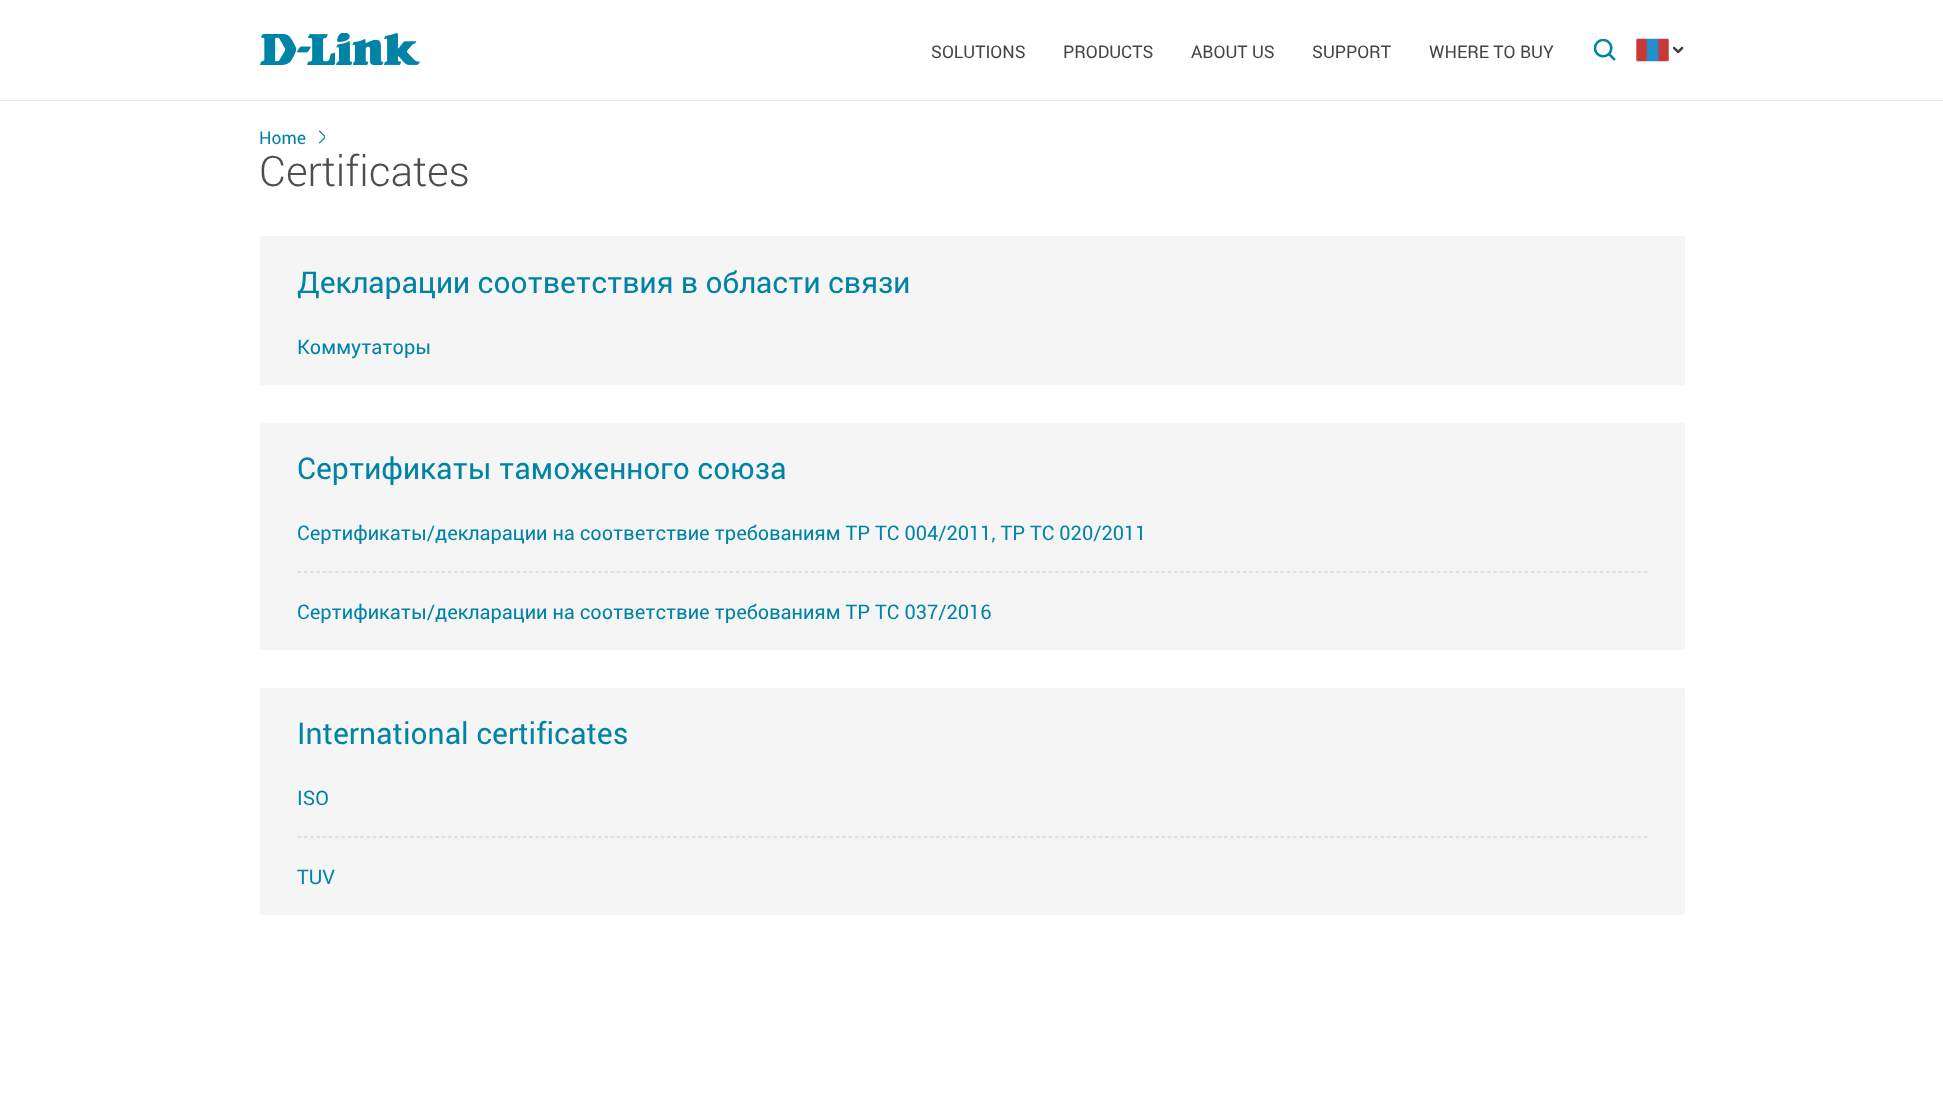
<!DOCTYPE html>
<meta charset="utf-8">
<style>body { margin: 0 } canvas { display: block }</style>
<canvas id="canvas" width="1943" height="1109"></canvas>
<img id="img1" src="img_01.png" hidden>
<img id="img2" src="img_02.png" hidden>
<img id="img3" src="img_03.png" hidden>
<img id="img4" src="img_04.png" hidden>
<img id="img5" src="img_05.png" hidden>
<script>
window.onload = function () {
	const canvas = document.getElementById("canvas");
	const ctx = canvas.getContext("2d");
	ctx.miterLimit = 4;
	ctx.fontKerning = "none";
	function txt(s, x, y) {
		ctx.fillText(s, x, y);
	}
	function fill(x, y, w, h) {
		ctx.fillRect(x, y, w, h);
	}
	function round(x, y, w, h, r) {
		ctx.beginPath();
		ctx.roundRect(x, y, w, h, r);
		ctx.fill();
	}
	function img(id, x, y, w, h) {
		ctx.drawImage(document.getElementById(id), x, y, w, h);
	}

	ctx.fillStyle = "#FFFFFF";
	fill(0, 0, 1943, 1109);
	ctx.fillStyle = "#E5E5E5";
	fill(0, 100, 1943, 1);
	img("img1", 260, 33, 160, 32);
	img("img2", 1594, 39, 22, 22);
	img("img3", 1672, 46, 12, 8);
	img("img4", 1636, 38, 33, 24);
	img("img5", 319, 130, 6, 14);
	ctx.fillStyle = "#F5F5F5";
	round(260, 236, 1425, 149, 2.5);
	round(260, 423, 1425, 227, 2.5);
	ctx.beginPath();
	ctx.moveTo(297.5, 572);
	ctx.lineTo(1647.5, 572);
	ctx.strokeStyle = "#CCCCCC";
	ctx.lineWidth = 1.2;
	ctx.setLineDash([3.75, 2.51]);
	ctx.stroke();
	round(260, 688, 1425, 227, 2.5);
	ctx.beginPath();
	ctx.moveTo(297.5, 837);
	ctx.lineTo(1647.5, 837);
	ctx.stroke();
	ctx.font = "17.5px Roboto";
	ctx.fillStyle = "#444444";
	txt("SOLUTIONS", 931, 58);
	txt("PRODUCTS", 1063, 58);
	txt("ABOUT US", 1191, 58);
	txt("SUPPORT", 1312, 58);
	txt("WHERE TO BUY", 1429, 58);
	ctx.fillStyle = "#0083A5";
	txt("Home", 259, 144);
	ctx.font = "300 42px Roboto";
	ctx.fillStyle = "#4D4D4D";
	txt("Certificates", 259, 186);
	ctx.font = "30px Roboto";
	ctx.fillStyle = "#0083A5";
	txt("Декларации соответствия в области связи", 297, 293);
	ctx.font = "20px Roboto";
	txt("Коммутаторы", 297, 354);
	ctx.font = "30px Roboto";
	txt("Сертификаты таможенного союза", 297, 479);
	ctx.font = "20px Roboto";
	txt("Сертификаты/декларации на соответствие требованиям ТР ТС 004/2011, ТР ТС 020/2011", 297, 540);
	txt("Сертификаты/декларации на соответствие требованиям ТР ТС 037/2016", 297, 619);
	ctx.font = "30px Roboto";
	txt("International certificates", 297, 744);
	ctx.font = "20px Roboto";
	txt("ISO", 297, 805);
	txt("TUV", 297, 884);
};
</script>
